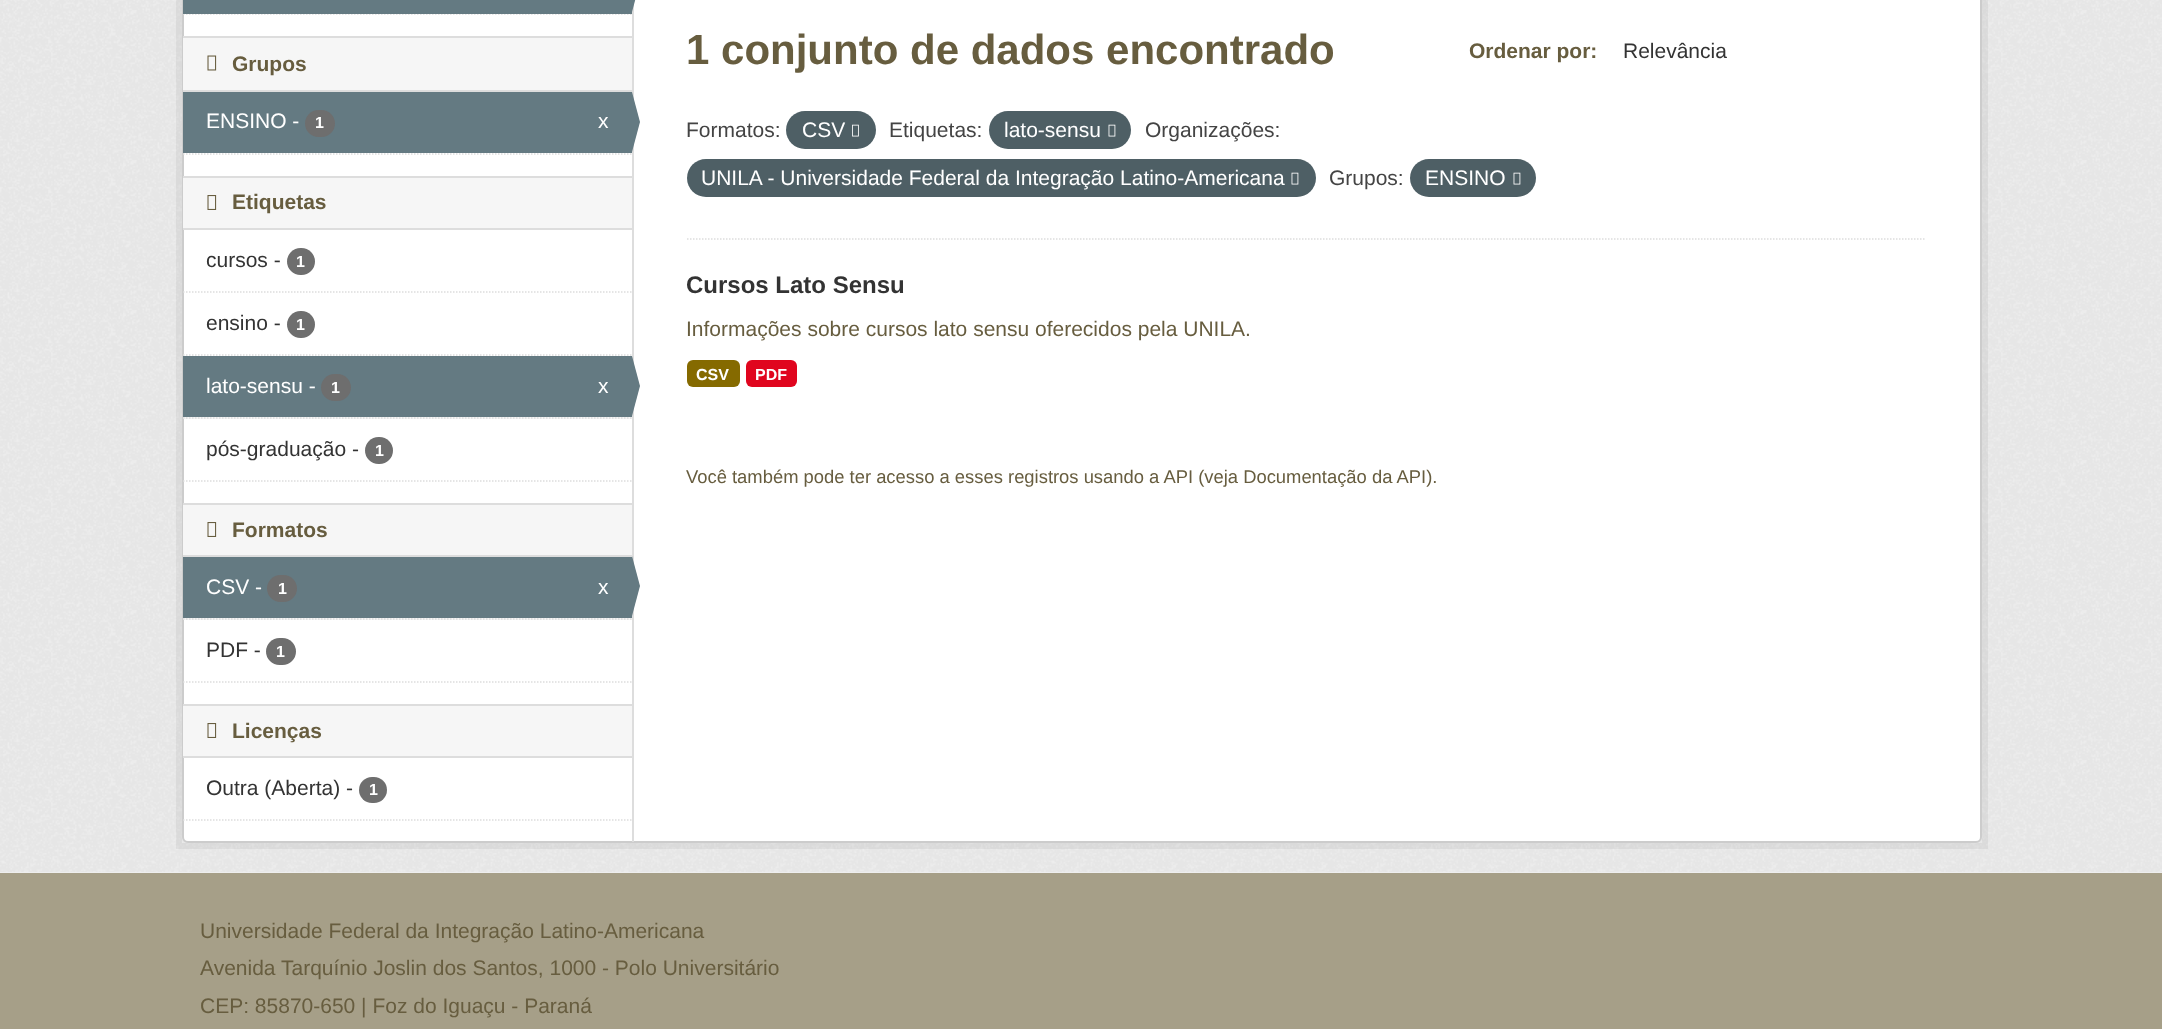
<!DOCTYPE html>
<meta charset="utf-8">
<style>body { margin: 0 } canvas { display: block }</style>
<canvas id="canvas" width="2162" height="1029"></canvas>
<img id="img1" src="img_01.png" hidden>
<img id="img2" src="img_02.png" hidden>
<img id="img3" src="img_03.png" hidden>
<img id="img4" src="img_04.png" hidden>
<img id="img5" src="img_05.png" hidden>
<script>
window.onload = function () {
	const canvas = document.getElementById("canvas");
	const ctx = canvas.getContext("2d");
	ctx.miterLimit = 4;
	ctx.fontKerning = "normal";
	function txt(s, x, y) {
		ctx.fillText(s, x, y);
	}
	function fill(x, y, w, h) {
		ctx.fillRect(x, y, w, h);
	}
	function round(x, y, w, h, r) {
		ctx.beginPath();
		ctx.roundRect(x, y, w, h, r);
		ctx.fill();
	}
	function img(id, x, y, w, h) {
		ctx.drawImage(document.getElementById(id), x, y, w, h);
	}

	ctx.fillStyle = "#A69F88";
	fill(0, 0, 2162, 1029);
	ctx.fillStyle = "#EEEEEE";
	fill(0, 0, 2162, 873);
	img("img1", 0, 0, 2162, 872);
	ctx.strokeStyle = "rgba(0, 0, 0, 0.05)";
	ctx.lineWidth = 6;
	ctx.strokeRect(179, -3, 1806, 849);
	ctx.fillStyle = "#FFFFFF";
	ctx.beginPath();
	ctx.roundRect(183, -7, 1798, 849, 5);
	ctx.fill();
	ctx.strokeStyle = "#CCCCCC";
	ctx.lineWidth = 2;
	ctx.stroke();
	ctx.beginPath();
	ctx.moveTo(183, 14);
	ctx.lineTo(631.5, 14);
	ctx.strokeStyle = "#DDDDDD";
	ctx.lineWidth = 1.5;
	ctx.setLineDash([1.5, 1.5]);
	ctx.stroke();
	ctx.fillStyle = "#647A82";
	fill(183, 0, 449, 14);
	ctx.fillStyle = "#DDDDDD";
	fill(632, 0, 2, 842);
	ctx.fillStyle = "#647A82";
	ctx.beginPath();
	ctx.moveTo(632, 12);
	ctx.lineTo(632, -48);
	ctx.lineTo(640, -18);
	ctx.closePath();
	ctx.fill();
	ctx.fillStyle = "#F6F6F6";
	fill(183, 38, 449, 52);
	ctx.fillStyle = "#DDDDDD";
	fill(183, 36, 449, 2);
	fill(183, 90, 449, 2);
	img("img2", 207, 55, 10, 16);
	ctx.fillStyle = "#647A82";
	fill(183, 92, 449, 61);
	ctx.fillStyle = "#6E6E6E";
	round(305, 110, 30, 27, 13.5);
	ctx.fillStyle = "#647A82";
	ctx.beginPath();
	ctx.moveTo(632, 152);
	ctx.lineTo(632, 92);
	ctx.lineTo(640, 122);
	ctx.closePath();
	ctx.fill();
	ctx.beginPath();
	ctx.moveTo(183, 154);
	ctx.lineTo(631.5, 154);
	ctx.stroke();
	ctx.fillStyle = "#F6F6F6";
	fill(183, 178, 449, 50);
	ctx.fillStyle = "#DDDDDD";
	fill(183, 176, 449, 2);
	fill(183, 228, 449, 2);
	img("img3", 207, 195, 10, 15);
	ctx.beginPath();
	ctx.moveTo(183, 292);
	ctx.lineTo(631.5, 292);
	ctx.stroke();
	ctx.fillStyle = "#6E6E6E";
	round(287, 248, 28, 27, 13.5);
	ctx.beginPath();
	ctx.moveTo(183, 355);
	ctx.lineTo(631.5, 355);
	ctx.stroke();
	round(287, 311, 28, 27, 13.5);
	ctx.fillStyle = "#F6F6F6";
	fill(183, 417, 449, 2);
	ctx.beginPath();
	ctx.moveTo(183, 418);
	ctx.lineTo(631.5, 418);
	ctx.stroke();
	ctx.fillStyle = "#647A82";
	fill(183, 356, 449, 61);
	ctx.fillStyle = "#6E6E6E";
	round(321, 374, 30, 27, 13.5);
	ctx.fillStyle = "#647A82";
	ctx.beginPath();
	ctx.moveTo(632, 416);
	ctx.lineTo(632, 356);
	ctx.lineTo(640, 386);
	ctx.closePath();
	ctx.fill();
	ctx.fillStyle = "#6E6E6E";
	round(365, 437, 28, 27, 13.5);
	ctx.beginPath();
	ctx.moveTo(183, 481);
	ctx.lineTo(631.5, 481);
	ctx.stroke();
	ctx.fillStyle = "#F6F6F6";
	fill(183, 505, 449, 50);
	ctx.fillStyle = "#DDDDDD";
	fill(183, 503, 449, 2);
	fill(183, 555, 449, 2);
	img("img3", 207, 522, 10, 15);
	ctx.fillStyle = "#F6F6F6";
	fill(183, 618, 449, 2);
	ctx.beginPath();
	ctx.moveTo(183, 619);
	ctx.lineTo(631.5, 619);
	ctx.stroke();
	ctx.fillStyle = "#647A82";
	fill(183, 557, 449, 61);
	ctx.fillStyle = "#6E6E6E";
	round(267, 575, 30, 27, 13.5);
	ctx.fillStyle = "#647A82";
	ctx.beginPath();
	ctx.moveTo(632, 616);
	ctx.lineTo(632, 556);
	ctx.lineTo(640, 586);
	ctx.closePath();
	ctx.fill();
	ctx.fillStyle = "#6E6E6E";
	round(266, 638, 30, 27, 13.5);
	ctx.beginPath();
	ctx.moveTo(183, 682);
	ctx.lineTo(631.5, 682);
	ctx.stroke();
	ctx.fillStyle = "#F6F6F6";
	fill(183, 706, 449, 50);
	ctx.fillStyle = "#DDDDDD";
	fill(183, 704, 449, 2);
	fill(183, 756, 449, 2);
	img("img3", 207, 723, 10, 15);
	ctx.fillStyle = "#6E6E6E";
	round(359, 777, 28, 26, 13);
	ctx.beginPath();
	ctx.moveTo(183, 820);
	ctx.lineTo(631.5, 820);
	ctx.stroke();
	ctx.beginPath();
	ctx.moveTo(687, 239);
	ctx.lineTo(1926, 239);
	ctx.stroke();
	ctx.fillStyle = "#4E5F65";
	round(786, 111, 90, 38, 19);
	img("img4", 852, 124, 7, 13);
	round(989, 111, 142, 38, 19);
	img("img5", 1108, 124, 8, 13);
	round(687, 159, 629, 38, 19);
	img("img5", 1291, 172, 8, 13);
	round(1410, 159, 126, 38, 19);
	img("img5", 1513, 172, 8, 13);
	ctx.fillStyle = "#856A00";
	round(687, 360, 53, 27, 6);
	ctx.fillStyle = "#E0051E";
	round(746, 360, 51, 27, 6);
	ctx.font = "bold 21px Liberation Sans";
	ctx.fillStyle = "#675D3F";
	txt("Grupos", 232, 71);
	ctx.font = "21px Liberation Sans";
	ctx.fillStyle = "#FFFFFF";
	txt("ENSINO -", 206, 128);
	ctx.font = "bold 16px Liberation Sans";
	txt("1", 315, 128);
	ctx.font = "21px Liberation Sans";
	txt("x", 598, 128);
	ctx.font = "bold 21px Liberation Sans";
	ctx.fillStyle = "#675D3F";
	txt("Etiquetas", 232, 209);
	ctx.font = "21px Liberation Sans";
	ctx.fillStyle = "#333333";
	txt("cursos -", 206, 267);
	ctx.font = "bold 16px Liberation Sans";
	ctx.fillStyle = "#FFFFFF";
	txt("1", 296, 267);
	ctx.font = "21px Liberation Sans";
	ctx.fillStyle = "#333333";
	txt("ensino -", 206, 330);
	ctx.font = "bold 16px Liberation Sans";
	ctx.fillStyle = "#FFFFFF";
	txt("1", 296, 330);
	ctx.font = "21px Liberation Sans";
	txt("lato-sensu -", 206, 393);
	ctx.font = "bold 16px Liberation Sans";
	txt("1", 331, 393);
	ctx.font = "21px Liberation Sans";
	txt("x", 598, 393);
	ctx.fillStyle = "#333333";
	txt("pós-graduação -", 206, 456);
	ctx.font = "bold 16px Liberation Sans";
	ctx.fillStyle = "#FFFFFF";
	txt("1", 375, 456);
	ctx.font = "bold 21px Liberation Sans";
	ctx.fillStyle = "#675D3F";
	txt("Formatos", 232, 537);
	ctx.font = "21px Liberation Sans";
	ctx.fillStyle = "#FFFFFF";
	txt("CSV -", 206, 594);
	ctx.font = "bold 16px Liberation Sans";
	txt("1", 278, 594);
	ctx.font = "21px Liberation Sans";
	txt("x", 598, 594);
	ctx.fillStyle = "#333333";
	txt("PDF -", 206, 657);
	ctx.font = "bold 16px Liberation Sans";
	ctx.fillStyle = "#FFFFFF";
	txt("1", 276, 657);
	ctx.font = "bold 21px Liberation Sans";
	ctx.fillStyle = "#675D3F";
	txt("Licenças", 232, 738);
	ctx.font = "21px Liberation Sans";
	ctx.fillStyle = "#333333";
	txt("Outra (Aberta) -", 206, 795);
	ctx.font = "bold 16px Liberation Sans";
	ctx.fillStyle = "#FFFFFF";
	txt("1", 369, 795);
	ctx.font = "bold 42px Liberation Sans";
	ctx.fillStyle = "#675D3F";
	txt("1 conjunto de dados encontrado", 686, 64);
	ctx.font = "bold 21px Liberation Sans";
	txt("Ordenar por:", 1469, 58);
	ctx.font = "21px Liberation Sans";
	ctx.fillStyle = "#333333";
	txt("Relevância", 1623, 58);
	ctx.fillStyle = "#444444";
	txt("Formatos:", 686, 137);
	ctx.fillStyle = "#FFFFFF";
	txt("CSV", 802, 137);
	ctx.fillStyle = "#444444";
	txt("Etiquetas:", 889, 137);
	ctx.fillStyle = "#FFFFFF";
	txt("lato-sensu", 1004, 137);
	ctx.fillStyle = "#444444";
	txt("Organizações:", 1145, 137);
	ctx.fillStyle = "#FFFFFF";
	txt("UNILA - Universidade Federal da Integração Latino-Americana", 701, 185);
	ctx.fillStyle = "#444444";
	txt("Grupos:", 1329, 185);
	ctx.fillStyle = "#FFFFFF";
	txt("ENSINO", 1425, 185);
	ctx.font = "bold 24px Liberation Sans";
	ctx.fillStyle = "#333333";
	txt("Cursos Lato Sensu", 686, 293);
	ctx.font = "21px Liberation Sans";
	ctx.fillStyle = "#675D3F";
	txt("Informações sobre cursos lato sensu oferecidos pela UNILA.", 686, 336);
	ctx.font = "bold 16px Liberation Sans";
	ctx.fillStyle = "#FFFFFF";
	txt("CSV", 696, 380);
	txt("PDF", 755, 380);
	ctx.font = "18.4px Liberation Sans";
	ctx.fillStyle = "#675D3F";
	txt("Você também pode ter acesso a esses registros usando a API (veja Documentação da API).", 686, 483);
	ctx.font = "21px Liberation Sans";
	txt("Universidade Federal da Integração Latino-Americana", 200, 938);
	txt("Avenida Tarquínio Joslin dos Santos, 1000 - Polo Universitário", 200, 975);
	txt("CEP: 85870-650 | Foz do Iguaçu - Paraná", 200, 1013);
};
</script>
